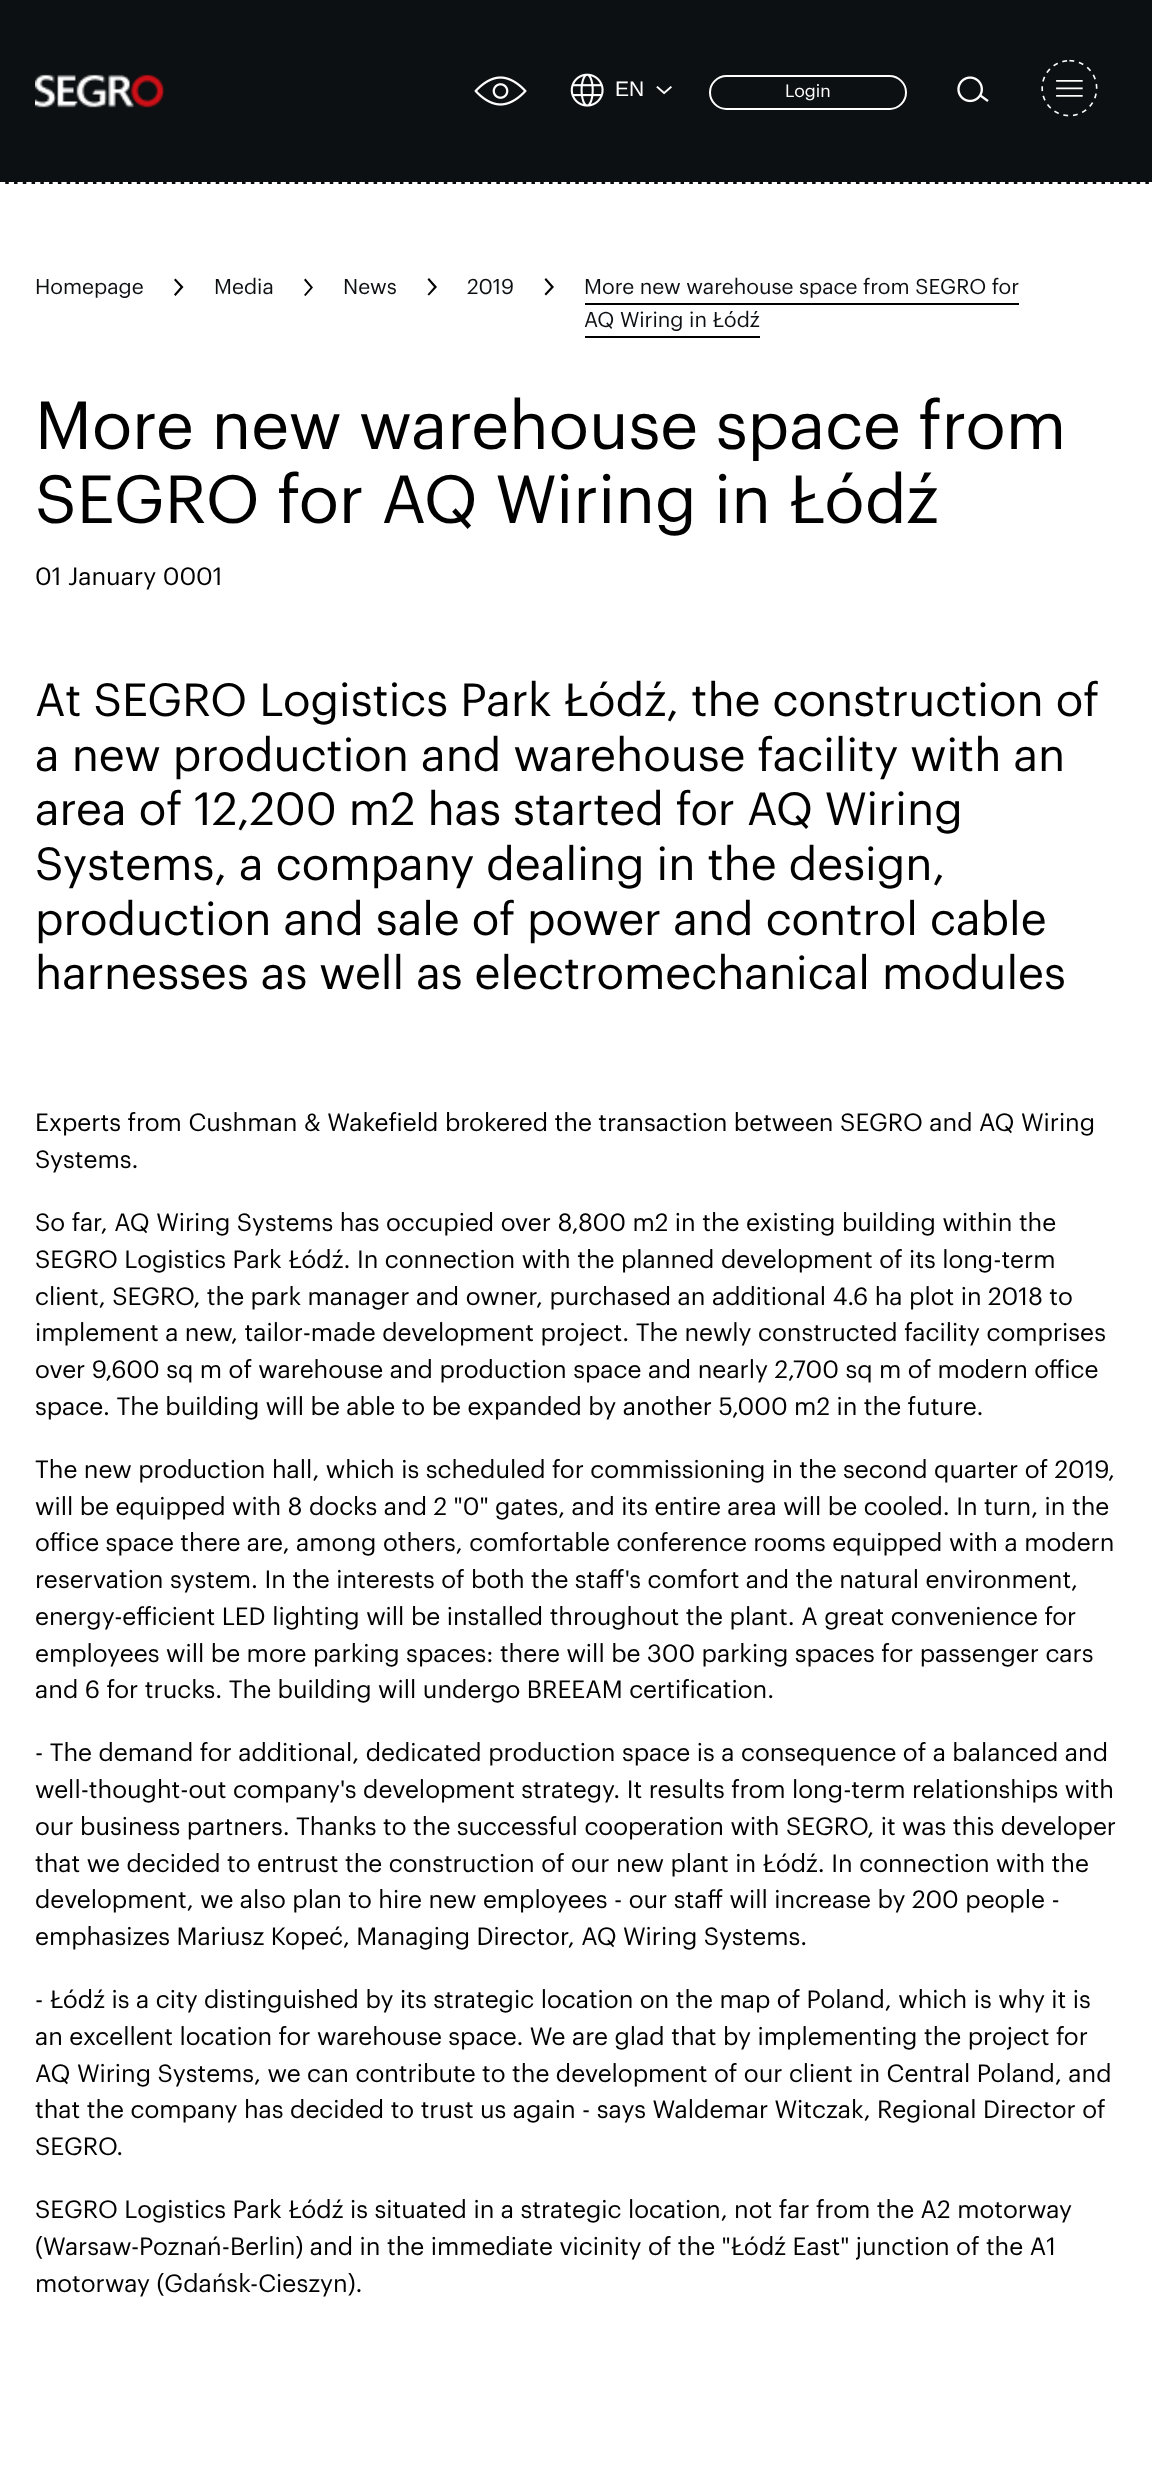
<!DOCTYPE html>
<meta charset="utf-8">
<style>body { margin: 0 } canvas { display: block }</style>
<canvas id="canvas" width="1152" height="2478"></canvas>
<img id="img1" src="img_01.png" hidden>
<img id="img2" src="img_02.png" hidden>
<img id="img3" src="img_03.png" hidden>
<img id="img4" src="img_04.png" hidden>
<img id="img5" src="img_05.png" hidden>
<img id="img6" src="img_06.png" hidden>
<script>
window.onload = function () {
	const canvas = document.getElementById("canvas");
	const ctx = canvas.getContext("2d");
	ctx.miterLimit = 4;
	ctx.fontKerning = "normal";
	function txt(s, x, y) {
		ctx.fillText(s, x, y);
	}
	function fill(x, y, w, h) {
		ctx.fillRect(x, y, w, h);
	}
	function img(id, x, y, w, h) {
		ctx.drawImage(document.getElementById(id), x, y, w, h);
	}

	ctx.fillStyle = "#FFFFFF";
	fill(0, 0, 1152, 2478);
	ctx.fillStyle = "#0D1012";
	fill(0, 0, 1152, 184);
	ctx.beginPath();
	ctx.moveTo(0, 183);
	ctx.lineTo(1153, 183);
	ctx.strokeStyle = "#FFFFFF";
	ctx.lineWidth = 1.8;
	ctx.setLineDash([5.25, 3.52]);
	ctx.stroke();
	img("img1", 35, 74, 130, 34);
	img("img2", 474, 76, 53, 30);
	img("img3", 570, 73, 34, 34);
	img("img4", 656, 86, 16, 9);
	ctx.beginPath();
	ctx.roundRect(710, 76, 196, 33, 16.5);
	ctx.lineWidth = 2;
	ctx.setLineDash([]);
	ctx.stroke();
	img("img5", 957, 76, 32, 27);
	img("img6", 1041, 59, 57, 58);
	ctx.fillStyle = "#000000";
	ctx.beginPath();
	ctx.moveTo(183.5, 287);
	ctx.lineTo(175.5, 296);
	ctx.lineTo(174, 294.5);
	ctx.lineTo(180.5, 287);
	ctx.lineTo(174, 280);
	ctx.lineTo(175.5, 278.5);
	ctx.closePath();
	ctx.fill();
	ctx.beginPath();
	ctx.moveTo(313, 287.5);
	ctx.lineTo(305.5, 296);
	ctx.lineTo(304, 295);
	ctx.lineTo(310.5, 287.5);
	ctx.lineTo(304, 280);
	ctx.lineTo(305.5, 278.5);
	ctx.closePath();
	ctx.fill();
	ctx.beginPath();
	ctx.moveTo(437, 287);
	ctx.lineTo(429, 295.5);
	ctx.lineTo(427.5, 294.5);
	ctx.lineTo(434, 287);
	ctx.lineTo(427.5, 279.5);
	ctx.lineTo(429, 278);
	ctx.closePath();
	ctx.fill();
	ctx.beginPath();
	ctx.moveTo(554, 287);
	ctx.lineTo(546, 295.5);
	ctx.lineTo(544.5, 294);
	ctx.lineTo(551, 287);
	ctx.lineTo(544.5, 279.5);
	ctx.lineTo(546, 278);
	ctx.closePath();
	ctx.fill();
	fill(585, 303, 434, 2);
	fill(585, 336, 175, 2);
	ctx.font = "21px Liberation Sans";
	ctx.fillStyle = "#FFFFFF";
	txt("EN", 615, 96);
	ctx.font = "17.5px Graphik";
	txt("Login", 785, 97);
	ctx.font = "21px Graphik";
	ctx.fillStyle = "#0D1012";
	txt("Homepage", 35, 294);
	txt("Media", 214, 294);
	txt("News", 343, 294);
	txt("2019", 467, 294);
	txt("More new warehouse space from SEGRO for", 584, 294);
	txt("AQ Wiring in Łódź", 584, 327);
	ctx.font = "66.5px Graphik";
	ctx.fillStyle = "#000000";
	txt("More new warehouse space from", 35, 449);
	txt("SEGRO for AQ Wiring in Łódź", 35, 523);
	ctx.font = "24.5px Graphik";
	txt("01 January 0001", 35, 585);
	ctx.font = "45.5px Graphik";
	txt("At SEGRO Logistics Park Łódź, the construction of", 35, 716);
	txt("a new production and warehouse facility with an", 35, 771);
	txt("area of 12,200 m2 has started for AQ Wiring", 35, 825);
	txt("Systems, a company dealing in the design,", 35, 880);
	txt("production and sale of power and control cable", 35, 935);
	txt("harnesses as well as electromechanical modules", 35, 989);
	ctx.font = "24.5px Graphik";
	txt("Experts from Cushman & Wakefield brokered the transaction between SEGRO and AQ Wiring", 35, 1131);
	txt("Systems.", 35, 1168);
	txt("So far, AQ Wiring Systems has occupied over 8,800 m2 in the existing building within the", 35, 1231);
	txt("SEGRO Logistics Park Łódź. In connection with the planned development of its long-term", 35, 1268);
	txt("client, SEGRO, the park manager and owner, purchased an additional 4.6 ha plot in 2018 to", 35, 1305);
	txt("implement a new, tailor-made development project. The newly constructed facility comprises", 35, 1341);
	txt("over 9,600 sq m of warehouse and production space and nearly 2,700 sq m of modern office", 35, 1378);
	txt("space. The building will be able to be expanded by another 5,000 m2 in the future.", 35, 1415);
	txt("The new production hall, which is scheduled for commissioning in the second quarter of 2019,", 35, 1478);
	txt("will be equipped with 8 docks and 2 \"0\" gates, and its entire area will be cooled. In turn, in the", 35, 1515);
	txt("office space there are, among others, comfortable conference rooms equipped with a modern", 35, 1551);
	txt("reservation system. In the interests of both the staff's comfort and the natural environment,", 35, 1588);
	txt("energy-efficient LED lighting will be installed throughout the plant. A great convenience for", 35, 1625);
	txt("employees will be more parking spaces: there will be 300 parking spaces for passenger cars", 35, 1662);
	txt("and 6 for trucks. The building will undergo BREEAM certification.", 35, 1698);
	txt("- The demand for additional, dedicated production space is a consequence of a balanced and", 35, 1761);
	txt("well-thought-out company's development strategy. It results from long-term relationships with", 35, 1798);
	txt("our business partners. Thanks to the successful cooperation with SEGRO, it was this developer", 35, 1835);
	txt("that we decided to entrust the construction of our new plant in Łódź. In connection with the", 35, 1872);
	txt("development, we also plan to hire new employees - our staff will increase by 200 people -", 35, 1908);
	txt("emphasizes Mariusz Kopeć, Managing Director, AQ Wiring Systems.", 35, 1945);
	txt("- Łódź is a city distinguished by its strategic location on the map of Poland, which is why it is", 35, 2008);
	txt("an excellent location for warehouse space. We are glad that by implementing the project for", 35, 2045);
	txt("AQ Wiring Systems, we can contribute to the development of our client in Central Poland, and", 35, 2082);
	txt("that the company has decided to trust us again - says Waldemar Witczak, Regional Director of", 35, 2118);
	txt("SEGRO.", 35, 2155);
	txt("SEGRO Logistics Park Łódź is situated in a strategic location, not far from the A2 motorway", 35, 2218);
	txt("(Warsaw-Poznań-Berlin) and in the immediate vicinity of the \"Łódź East\" junction of the A1", 35, 2255);
	txt("motorway (Gdańsk-Cieszyn).", 35, 2292);
};
</script>
